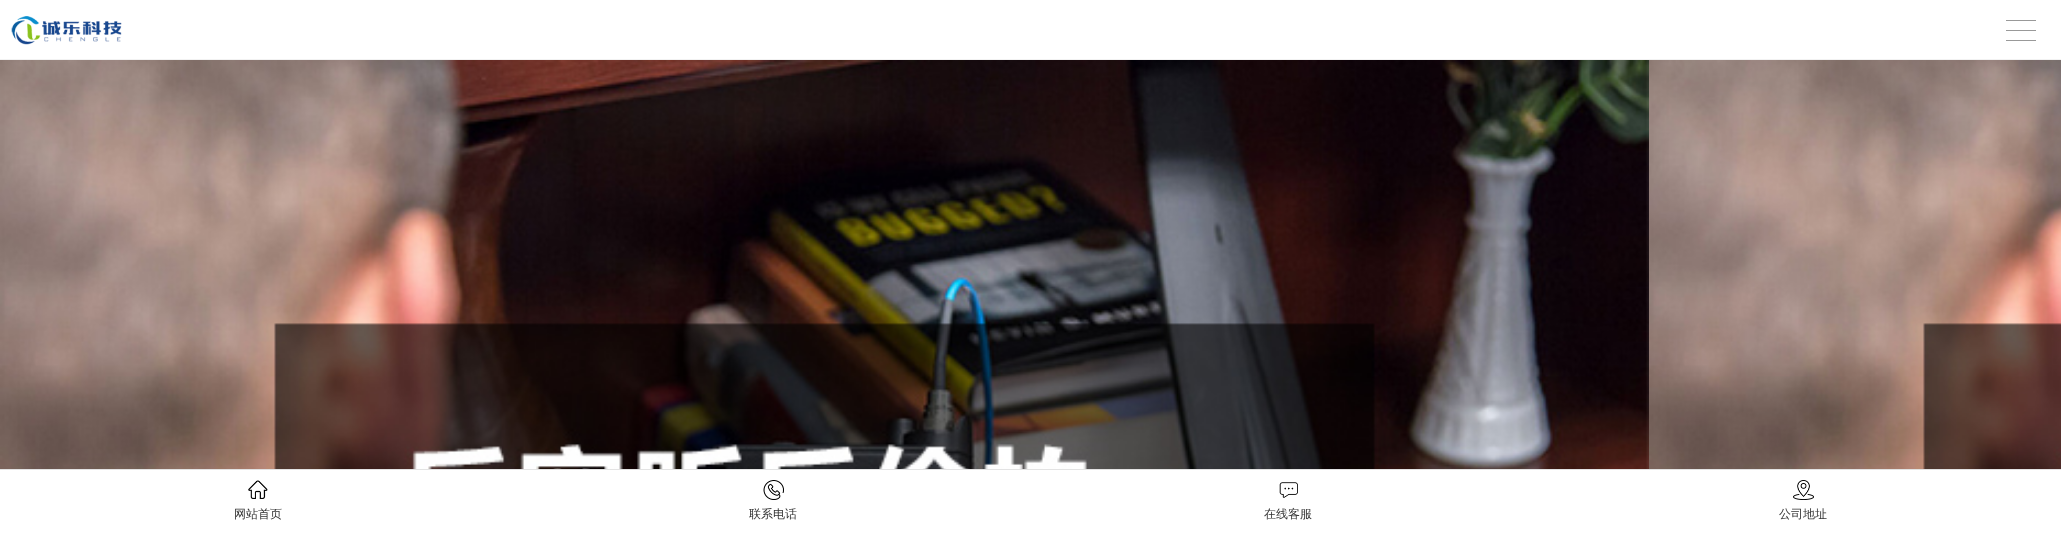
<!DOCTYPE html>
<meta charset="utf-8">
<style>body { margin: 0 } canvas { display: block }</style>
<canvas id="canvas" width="2061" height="533"></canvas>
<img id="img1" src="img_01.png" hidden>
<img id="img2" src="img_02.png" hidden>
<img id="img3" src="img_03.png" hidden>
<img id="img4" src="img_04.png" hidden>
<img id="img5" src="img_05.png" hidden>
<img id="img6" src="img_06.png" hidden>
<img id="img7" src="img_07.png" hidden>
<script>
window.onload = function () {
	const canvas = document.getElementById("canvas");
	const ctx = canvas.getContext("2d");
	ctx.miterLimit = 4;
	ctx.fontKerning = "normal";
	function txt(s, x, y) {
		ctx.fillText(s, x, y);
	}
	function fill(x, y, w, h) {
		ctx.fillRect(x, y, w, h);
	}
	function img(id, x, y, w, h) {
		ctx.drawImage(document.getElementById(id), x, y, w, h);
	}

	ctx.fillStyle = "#FFFFFF";
	fill(0, 0, 2061, 533);
	img("img1", 11, 16, 111, 29);
	ctx.fillStyle = "#F2F2F2";
	fill(0, 59, 2061, 1);
	ctx.fillStyle = "#999999";
	fill(2006, 20, 30, 1);
	fill(2006, 30, 30, 1);
	fill(2006, 40, 30, 1);
	img("img2", 0, 60, 1649, 409);
	img("img3", 1649, 60, 412, 409);
	ctx.fillStyle = "#E3E3E3";
	fill(0, 469, 2061, 1);
	img("img4", 248, 480, 20, 19);
	img("img5", 763, 480, 21, 20);
	img("img6", 1279, 482, 19, 16);
	img("img7", 1793, 480, 21, 20);
	ctx.font = "500 12px WenQuanYi Zen Hei";
	ctx.fillStyle = "#333333";
	txt("网站首页", 234, 518);
	txt("联系电话", 749, 518);
	txt("在线客服", 1264, 518);
	txt("公司地址", 1779, 518);
};
</script>
